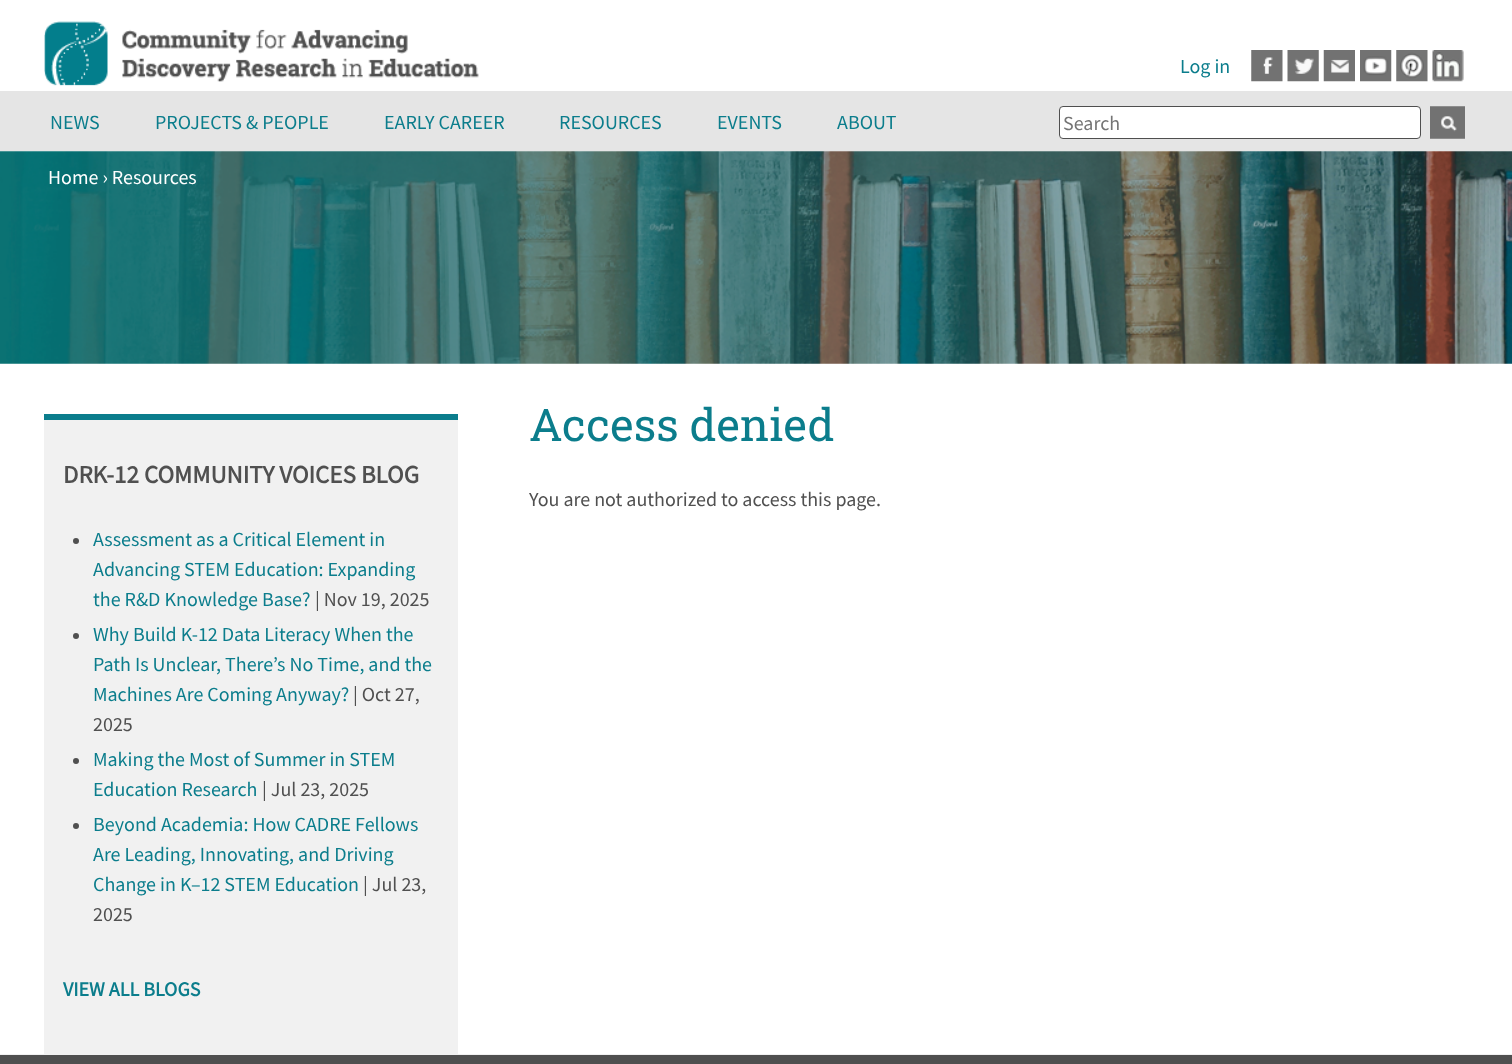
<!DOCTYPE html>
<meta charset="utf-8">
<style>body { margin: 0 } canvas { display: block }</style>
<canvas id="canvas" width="1512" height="1064"></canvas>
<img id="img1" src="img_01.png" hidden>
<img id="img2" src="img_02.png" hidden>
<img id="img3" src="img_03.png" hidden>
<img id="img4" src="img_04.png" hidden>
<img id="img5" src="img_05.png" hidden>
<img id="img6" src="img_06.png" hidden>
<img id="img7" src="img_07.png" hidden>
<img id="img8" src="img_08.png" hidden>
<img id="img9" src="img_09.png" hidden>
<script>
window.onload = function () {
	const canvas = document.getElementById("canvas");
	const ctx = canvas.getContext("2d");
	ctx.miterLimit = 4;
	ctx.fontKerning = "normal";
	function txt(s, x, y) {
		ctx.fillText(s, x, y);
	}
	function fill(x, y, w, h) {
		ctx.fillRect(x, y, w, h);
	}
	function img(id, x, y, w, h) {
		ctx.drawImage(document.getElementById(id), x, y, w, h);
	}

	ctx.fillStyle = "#FFFFFF";
	fill(0, 0, 1512, 1064);
	img("img1", 44, 21, 435, 65);
	img("img2", 1251, 50, 32, 32);
	img("img3", 1287, 50, 32, 32);
	img("img4", 1323, 50, 32, 32);
	img("img5", 1360, 50, 32, 32);
	img("img6", 1396, 50, 32, 32);
	img("img7", 1432, 50, 32, 32);
	ctx.fillStyle = "#E5E5E5";
	fill(0, 91, 1512, 60);
	ctx.fillStyle = "#FFFFFF";
	ctx.beginPath();
	ctx.roundRect(1059.5, 106.5, 361, 32, 3.5);
	ctx.fill();
	ctx.strokeStyle = "#4F4F4F";
	ctx.stroke();
	img("img8", 1430, 106, 35, 33);
	img("img9", 0, 151, 1512, 213);
	ctx.fillStyle = "#F1F1F1";
	fill(44, 420, 414, 634);
	ctx.fillStyle = "#0B7D8C";
	fill(44, 414, 414, 6);
	ctx.fillStyle = "#505050";
	ctx.beginPath();
	ctx.arc(76, 541, 3, 0, Math.PI * 2);
	ctx.fill();
	ctx.beginPath();
	ctx.arc(76, 636, 3, 0, Math.PI * 2);
	ctx.fill();
	ctx.beginPath();
	ctx.arc(76, 761, 3, 0, Math.PI * 2);
	ctx.fill();
	ctx.beginPath();
	ctx.arc(76, 826, 3, 0, Math.PI * 2);
	ctx.fill();
	ctx.fillStyle = "#4F4F4F";
	fill(0, 1055, 1512, 9);
	ctx.fillStyle = "#F1F1F1";
	fill(0, 1054, 1512, 1);
	ctx.font = "20px Source Sans Pro";
	ctx.fillStyle = "#0B7D8C";
	txt("Log in", 1180, 73);
	txt("NEWS", 50, 129);
	txt("PROJECTS & PEOPLE", 155, 129);
	txt("EARLY CAREER", 384, 129);
	txt("RESOURCES", 559, 129);
	txt("EVENTS", 717, 129);
	txt("ABOUT", 837, 129);
	ctx.fillStyle = "#757575";
	txt("Search", 1063, 130);
	ctx.fillStyle = "#FFFFFF";
	txt("Home › Resources", 48, 184);
	ctx.font = "bold 25px Source Sans Pro";
	ctx.fillStyle = "#505050";
	txt("DRK-12 COMMUNITY VOICES BLOG", 63, 483);
	ctx.font = "20px Source Sans Pro";
	ctx.fillStyle = "#0B7D8C";
	txt("Assessment as a Critical Element in", 93, 546);
	txt("Advancing STEM Education: Expanding", 93, 576);
	txt("the R&D Knowledge Base?", 93, 606);
	ctx.fillStyle = "#505050";
	txt("| Nov 19, 2025", 315, 606);
	ctx.fillStyle = "#0B7D8C";
	txt("Why Build K-12 Data Literacy When the", 93, 641);
	txt("Path Is Unclear, There’s No Time, and the", 93, 671);
	txt("Machines Are Coming Anyway?", 93, 701);
	ctx.fillStyle = "#505050";
	txt("| Oct 27,", 353, 701);
	txt("2025", 93, 731);
	ctx.fillStyle = "#0B7D8C";
	txt("Making the Most of Summer in STEM", 93, 766);
	txt("Education Research", 93, 796);
	ctx.fillStyle = "#505050";
	txt("| Jul 23, 2025", 262, 796);
	ctx.fillStyle = "#0B7D8C";
	txt("Beyond Academia: How CADRE Fellows", 93, 831);
	txt("Are Leading, Innovating, and Driving", 93, 861);
	txt("Change in K–12 STEM Education", 93, 891);
	ctx.fillStyle = "#505050";
	txt("| Jul 23,", 363, 891);
	txt("2025", 93, 921);
	ctx.font = "bold 20px Source Sans Pro";
	ctx.fillStyle = "#0B7D8C";
	txt("VIEW ALL BLOGS", 63, 996);
	ctx.font = "45px Roboto Slab";
	txt("Access denied", 529, 441);
	ctx.font = "20px Source Sans Pro";
	ctx.fillStyle = "#505050";
	txt("You are not authorized to access this page.", 529, 506);
};
</script>
